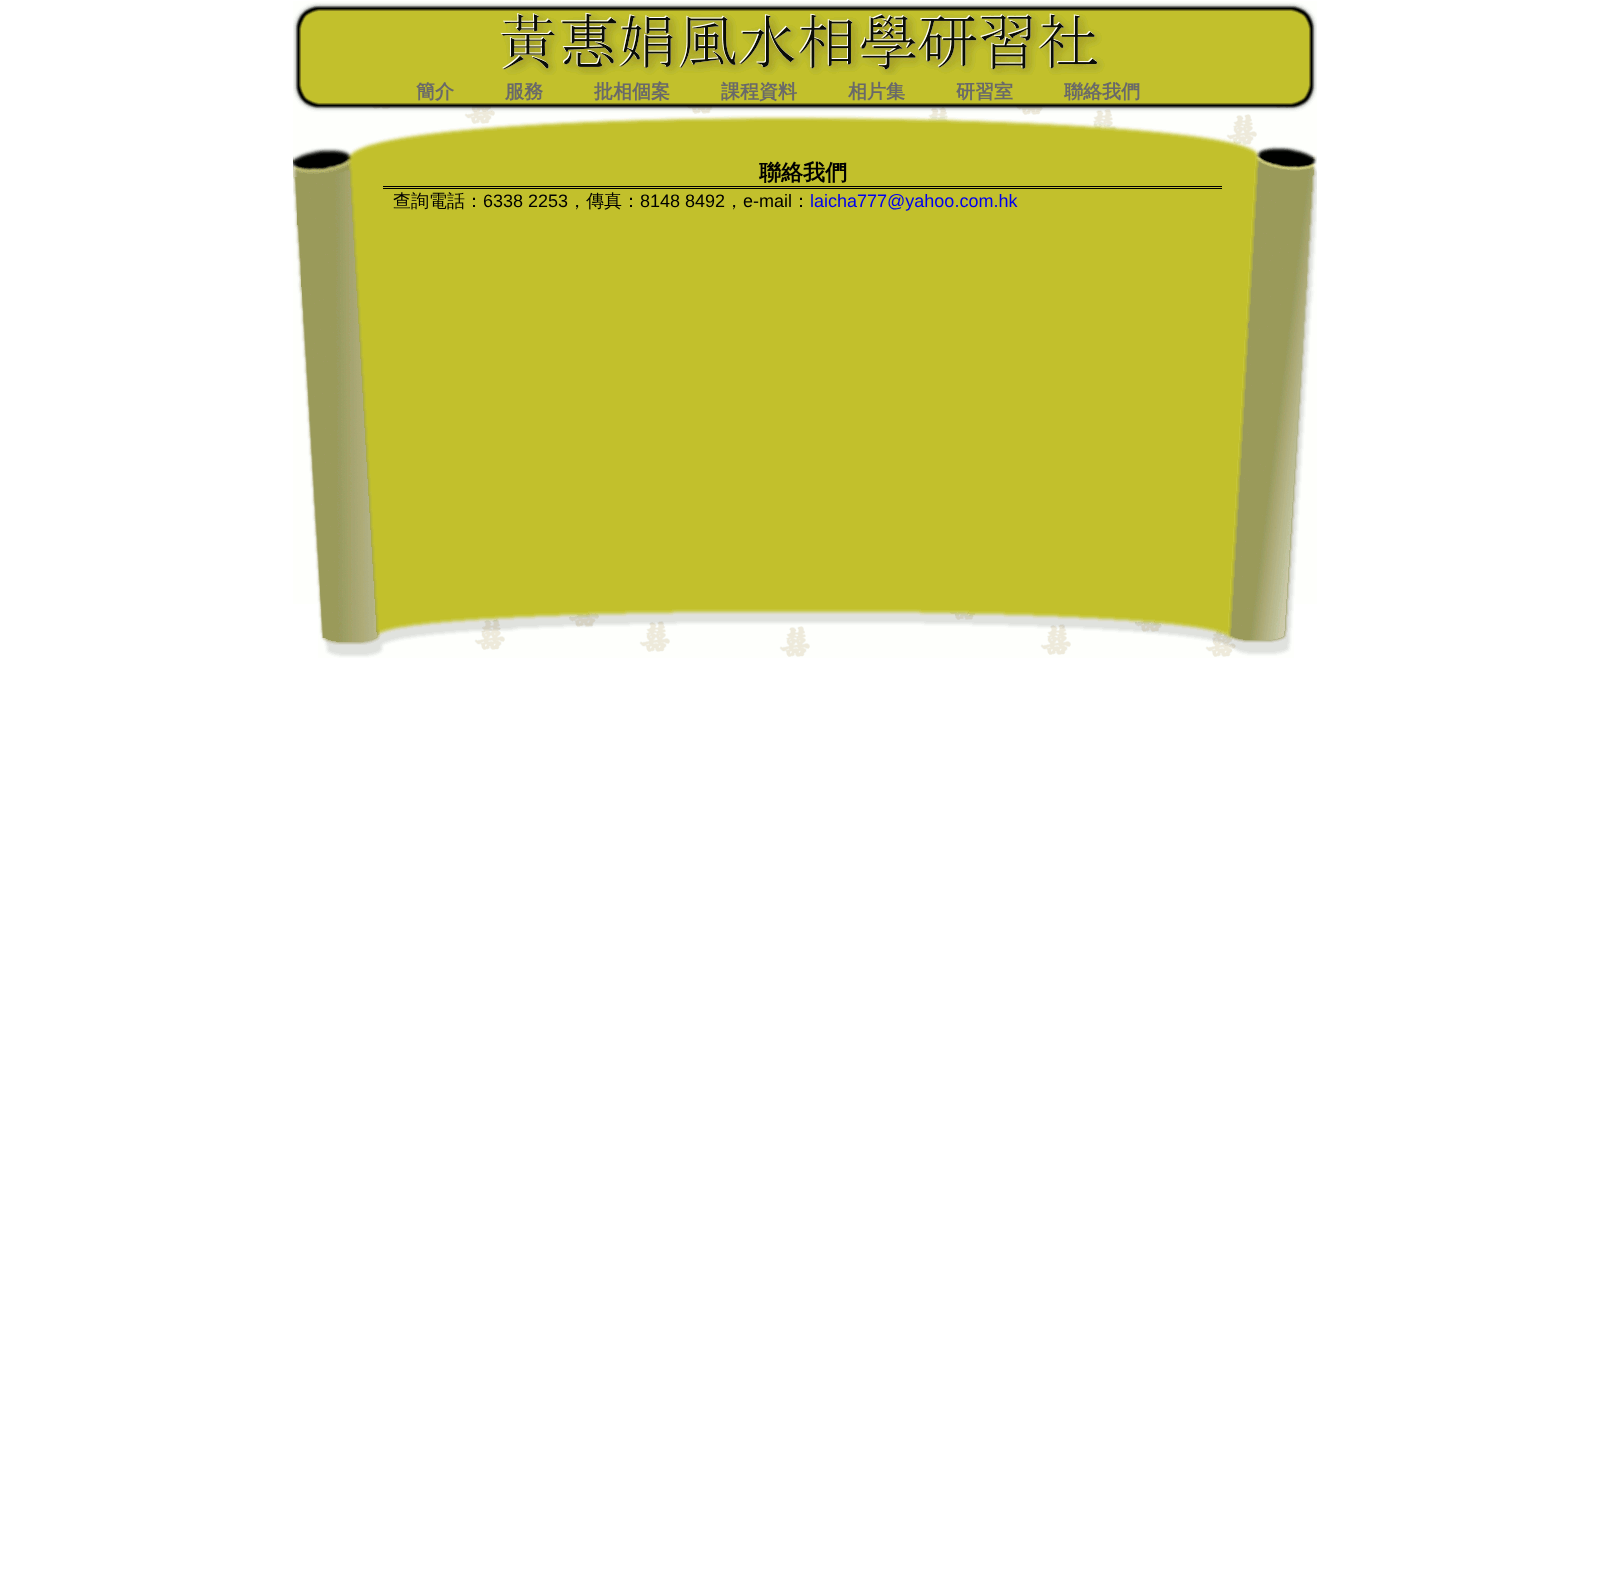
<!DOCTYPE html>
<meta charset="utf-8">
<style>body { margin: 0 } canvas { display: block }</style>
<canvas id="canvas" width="1610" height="1582"></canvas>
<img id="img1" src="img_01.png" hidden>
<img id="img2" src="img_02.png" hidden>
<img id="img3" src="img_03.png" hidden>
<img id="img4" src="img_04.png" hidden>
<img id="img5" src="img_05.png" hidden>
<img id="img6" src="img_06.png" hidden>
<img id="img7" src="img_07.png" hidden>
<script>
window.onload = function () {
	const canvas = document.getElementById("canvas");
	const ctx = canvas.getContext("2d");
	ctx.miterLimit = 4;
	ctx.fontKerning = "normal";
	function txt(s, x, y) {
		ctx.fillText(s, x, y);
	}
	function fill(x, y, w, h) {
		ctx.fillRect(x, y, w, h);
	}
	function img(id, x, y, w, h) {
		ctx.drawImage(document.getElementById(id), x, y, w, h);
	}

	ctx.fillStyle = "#FFFFFF";
	fill(0, 0, 1610, 1582);
	img("img1", 293, 1, 1024, 74);
	img("img2", 293, 75, 90, 23);
	ctx.fillStyle = "#C2C02C";
	fill(383, 75, 840, 23);
	img("img3", 1223, 75, 94, 23);
	img("img4", 293, 98, 1024, 60);
	img("img5", 293, 158, 90, 446);
	fill(383, 158, 840, 446);
	ctx.fillStyle = "#000000";
	fill(383, 186, 839, 1);
	fill(383, 188, 839, 1);
	img("img6", 1223, 158, 94, 446);
	img("img7", 318, 604, 976, 54);
	ctx.font = "bold 19px WenQuanYi Zen Hei";
	ctx.fillStyle = "#696969";
	txt("簡介", 416, 98);
	txt("服務", 505, 98);
	txt("批相個案", 594, 98);
	txt("課程資料", 721, 98);
	txt("相片集", 848, 98);
	txt("研習室", 956, 98);
	txt("聯絡我們", 1064, 98);
	ctx.font = "bold 22px WenQuanYi Zen Hei";
	ctx.fillStyle = "#000000";
	txt("聯絡我們", 759, 180);
	ctx.font = "500 18px WenQuanYi Zen Hei";
	txt("查詢電話：", 393, 207);
	ctx.font = "18px Liberation Sans";
	txt("6338 2253", 483, 207);
	ctx.font = "500 18px WenQuanYi Zen Hei";
	txt("，傳真：", 568, 207);
	ctx.font = "18px Liberation Sans";
	txt("8148 8492", 640, 207);
	ctx.font = "500 18px WenQuanYi Zen Hei";
	txt("，", 725, 207);
	ctx.font = "18px Liberation Sans";
	txt("e-mail", 743, 207);
	ctx.font = "500 18px WenQuanYi Zen Hei";
	txt("：", 792, 207);
	ctx.font = "18px Liberation Sans";
	ctx.fillStyle = "#0000EE";
	txt("laicha777@yahoo.com.hk", 810, 207);
};
</script>
